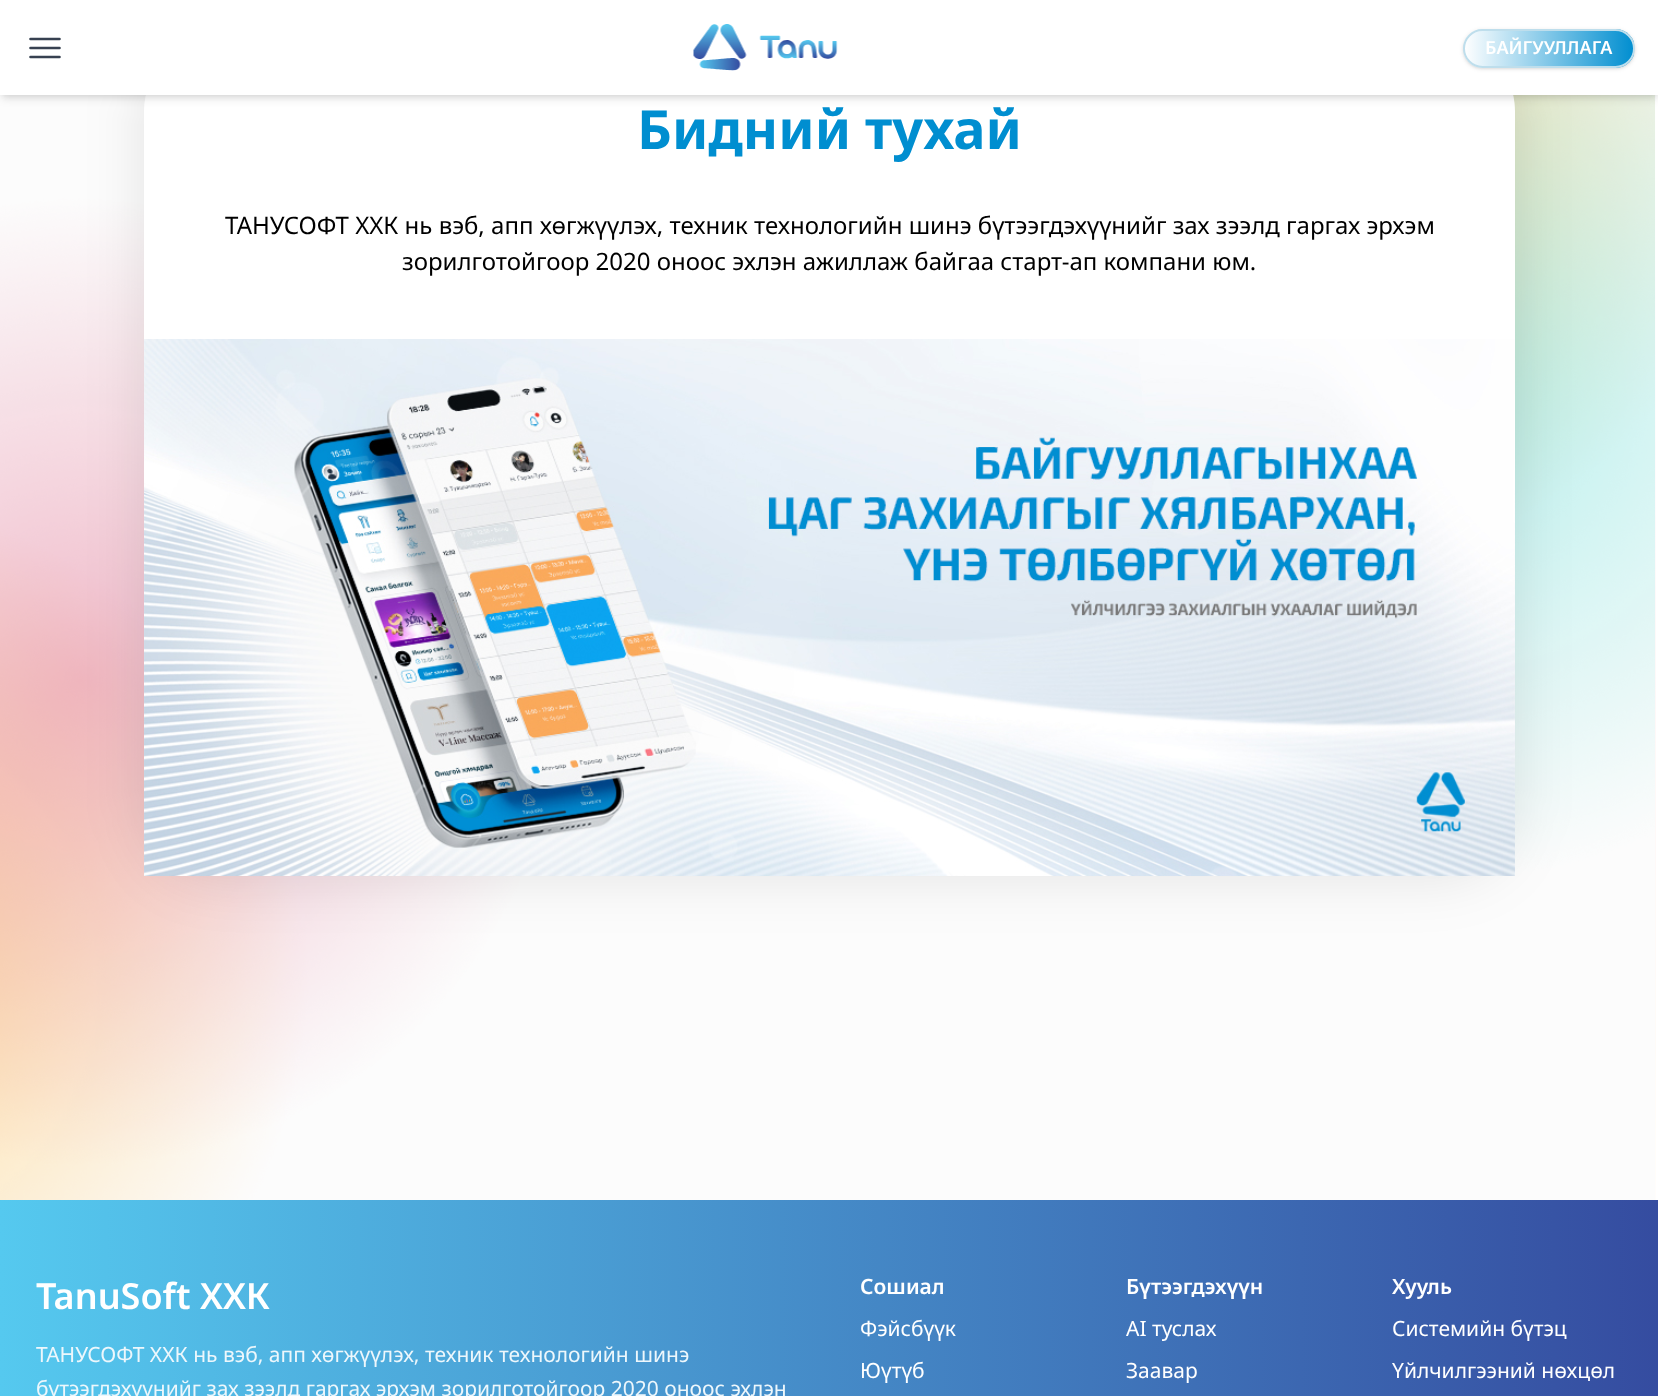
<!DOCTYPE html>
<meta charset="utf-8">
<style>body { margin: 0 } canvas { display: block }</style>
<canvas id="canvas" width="1658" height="1396"></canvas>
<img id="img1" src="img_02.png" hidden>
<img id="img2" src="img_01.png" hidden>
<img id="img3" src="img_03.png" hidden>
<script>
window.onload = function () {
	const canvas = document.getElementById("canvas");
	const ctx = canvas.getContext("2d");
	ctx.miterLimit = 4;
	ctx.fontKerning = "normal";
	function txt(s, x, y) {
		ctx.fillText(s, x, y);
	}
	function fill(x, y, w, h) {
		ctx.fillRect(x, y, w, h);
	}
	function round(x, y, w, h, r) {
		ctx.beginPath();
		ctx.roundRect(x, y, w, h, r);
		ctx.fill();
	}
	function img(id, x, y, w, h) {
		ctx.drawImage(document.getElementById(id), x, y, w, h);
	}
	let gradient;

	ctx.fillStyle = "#FFFFFF";
	fill(0, 0, 1658, 1396);
	img("img1", 0, 95, 1656, 1105);
	ctx.fillStyle = "rgba(0, 0, 0, 0.1)";
	ctx.filter = "blur(30px)";
	ctx.beginPath();
	ctx.roundRect(144, 39, 1371, 837, 72);
	ctx.fill();
	ctx.filter = "none";
	ctx.fillStyle = "#FFFFFF";
	round(144, 39, 1371, 837, 72);
	ctx.fillStyle = "rgba(0, 0, 0, 0.1)";
	ctx.filter = "blur(3px)";
	ctx.beginPath();
	ctx.rect(3, 6, 1653, 89);
	ctx.fill();
	ctx.filter = "none";
	ctx.filter = "blur(4.5px)";
	ctx.beginPath();
	ctx.rect(2, 8, 1656, 91);
	ctx.fill();
	ctx.filter = "none";
	ctx.fillStyle = "#FFFFFF";
	fill(0, 0, 1658, 95);
	ctx.beginPath();
	ctx.moveTo(30.5, 39);
	ctx.lineTo(59.5, 39);
	ctx.moveTo(30.5, 48);
	ctx.lineTo(59.5, 48);
	ctx.moveTo(30.5, 57);
	ctx.lineTo(59.5, 57);
	ctx.strokeStyle = "#374151";
	ctx.lineWidth = 2.6;
	ctx.lineCap = "round";
	ctx.lineJoin = "round";
	ctx.stroke();
	img("img2", 693, 24, 145, 47);
	ctx.fillStyle = "rgba(0, 0, 0, 0.1)";
	ctx.filter = "blur(1.5px)";
	ctx.beginPath();
	ctx.roundRect(1464, 32, 170, 36, 18);
	ctx.fill();
	ctx.filter = "none";
	ctx.filter = "blur(2px)";
	ctx.beginPath();
	ctx.roundRect(1463, 30, 172, 39, 19.5);
	ctx.fill();
	ctx.filter = "none";
	ctx.save();
	ctx.beginPath();
	ctx.roundRect(1463, 29, 172, 39, 19.5);
	ctx.clip();
	gradient = ctx.createLinearGradient(1464, 48, 1634, 48);
	gradient.addColorStop(0, "#FFFFFF");
	gradient.addColorStop(1, "#008ED0");
	ctx.fillStyle = gradient;
	fill(1464, 29, 170, 39);
	ctx.restore();
	ctx.beginPath();
	ctx.roundRect(1464, 30, 170, 37, 18.5);
	ctx.strokeStyle = "#BEDEEC";
	ctx.lineWidth = 2;
	ctx.lineJoin = "miter";
	ctx.stroke();
	img("img3", 144, 339, 1371, 537);
	gradient = ctx.createLinearGradient(0, 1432, 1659, 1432);
	gradient.addColorStop(0, "#55C9EF");
	gradient.addColorStop(1, "#354CA0");
	ctx.fillStyle = gradient;
	fill(0, 1200, 1658, 196);
	ctx.font = "600 18px Noto Sans";
	ctx.fillStyle = "#FFFFFF";
	txt("БАЙГУУЛЛАГА", 1485, 54);
	ctx.font = "bold 54px Noto Sans";
	ctx.fillStyle = "#008ED0";
	txt("Бидний тухай", 637, 149);
	ctx.font = "24px Noto Sans";
	ctx.fillStyle = "#000000";
	txt("ТАНУСОФТ ХХК нь вэб, апп хөгжүүлэх, техник технологийн шинэ бүтээгдэхүүнийг зах зээлд гаргах эрхэм", 225, 234);
	txt("зорилготойгоор 2020 оноос эхлэн ажиллаж байгаа старт-ап компани юм.", 402, 270);
	ctx.font = "600 36px Noto Sans";
	ctx.fillStyle = "#FFFFFF";
	txt("TanuSoft ХХК", 36, 1309);
	ctx.font = "21px Noto Sans";
	ctx.fillStyle = "#EDF7FC";
	txt("ТАНУСОФТ ХХК нь вэб, апп хөгжүүлэх, техник технологийн шинэ", 36, 1362);
	txt("бүтээгдэхүүнийг зах зээлд гаргах эрхэм зорилготойгоор 2020 оноос эхлэн", 36, 1396);
	ctx.font = "600 21px Noto Sans";
	ctx.fillStyle = "#FFFFFF";
	txt("Сошиал", 860, 1294);
	ctx.font = "21px Noto Sans";
	txt("Фэйсбүүк", 860, 1336);
	txt("Юүтүб", 860, 1378);
	ctx.font = "600 21px Noto Sans";
	txt("Бүтээгдэхүүн", 1126, 1294);
	ctx.font = "21px Noto Sans";
	txt("AI туслах", 1126, 1336);
	txt("Заавар", 1126, 1378);
	ctx.font = "600 21px Noto Sans";
	txt("Хууль", 1392, 1294);
	ctx.font = "21px Noto Sans";
	txt("Системийн бүтэц", 1392, 1336);
	txt("Үйлчилгээний нөхцөл", 1392, 1378);
};
</script>
